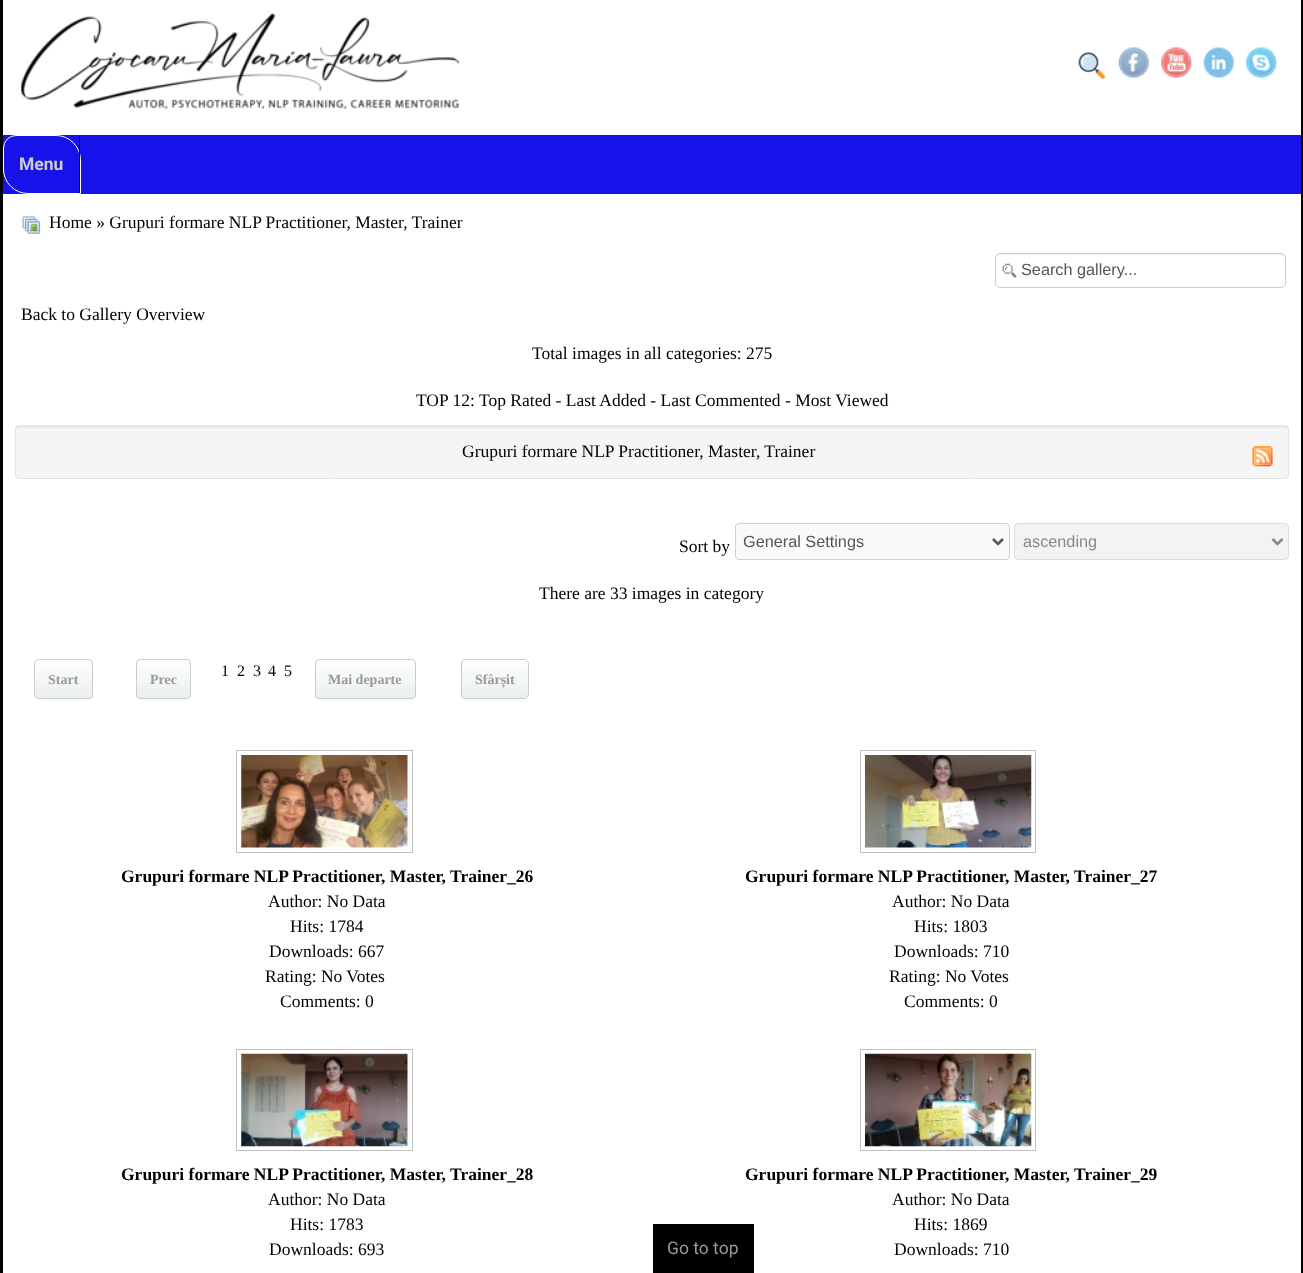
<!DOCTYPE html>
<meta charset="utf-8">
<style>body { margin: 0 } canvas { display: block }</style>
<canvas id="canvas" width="1303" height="1273"></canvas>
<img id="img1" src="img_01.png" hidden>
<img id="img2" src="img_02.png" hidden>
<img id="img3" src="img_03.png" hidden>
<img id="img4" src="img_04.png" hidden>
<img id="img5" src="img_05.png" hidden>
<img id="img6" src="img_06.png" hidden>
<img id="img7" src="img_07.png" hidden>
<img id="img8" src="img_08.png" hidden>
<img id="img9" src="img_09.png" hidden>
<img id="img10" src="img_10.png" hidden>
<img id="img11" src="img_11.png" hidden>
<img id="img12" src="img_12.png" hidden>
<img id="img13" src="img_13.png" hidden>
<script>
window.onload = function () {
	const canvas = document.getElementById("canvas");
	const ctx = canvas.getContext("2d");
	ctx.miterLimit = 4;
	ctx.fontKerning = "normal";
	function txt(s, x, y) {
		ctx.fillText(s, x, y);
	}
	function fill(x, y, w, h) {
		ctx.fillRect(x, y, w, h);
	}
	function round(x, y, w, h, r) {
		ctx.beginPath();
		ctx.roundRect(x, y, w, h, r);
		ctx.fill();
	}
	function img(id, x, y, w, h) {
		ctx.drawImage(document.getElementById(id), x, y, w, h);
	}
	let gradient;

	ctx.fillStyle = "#000000";
	fill(0, 0, 1303, 1273);
	ctx.fillStyle = "#FFFFFF";
	fill(3, 0, 1298, 1273);
	img("img1", 21, 13, 438, 96);
	img("img2", 1078, 52, 27, 27);
	img("img3", 1118, 47, 31, 31);
	img("img4", 1161, 47, 31, 31);
	img("img5", 1203, 47, 31, 31);
	img("img6", 1246, 47, 31, 31);
	ctx.fillStyle = "#1612E9";
	fill(3, 135, 1298, 59);
	ctx.beginPath();
	ctx.roundRect(3.5, 135.5, 77, 58, [12.5, 24.5, 0, 24.5]);
	ctx.strokeStyle = "#FFFFFF";
	ctx.stroke();
	ctx.fillStyle = "#000000";
	fill(79, 136, 1, 57);
	img("img7", 22, 216, 19, 18);
	img("img8", 1002, 263, 15, 15);
	ctx.fillStyle = "#ECECEC";
	ctx.beginPath();
	ctx.moveTo(1000, 255);
	ctx.lineTo(1281, 255);
	ctx.bezierCurveTo(1283, 255, 1285, 257, 1285, 259);
	ctx.bezierCurveTo(1285, 256, 1284, 254, 1281, 254);
	ctx.lineTo(1000, 254);
	ctx.bezierCurveTo(997, 254, 996, 256, 996, 259);
	ctx.bezierCurveTo(996, 257, 998, 255, 1000, 255);
	ctx.closePath();
	ctx.fill();
	ctx.beginPath();
	ctx.roundRect(995.5, 253.5, 290, 34, 4.5);
	ctx.strokeStyle = "#CCCCCC";
	ctx.stroke();
	ctx.fillStyle = "#F5F5F5";
	round(15, 425, 1274, 54, 4);
	ctx.fillStyle = "#E9E9E9";
	ctx.beginPath();
	ctx.moveTo(19, 428);
	ctx.lineTo(1285, 428);
	ctx.bezierCurveTo(1286, 428, 1288, 429, 1288, 430);
	ctx.lineTo(1288, 428);
	ctx.bezierCurveTo(1288, 427, 1287, 426, 1286, 426);
	ctx.lineTo(18, 426);
	ctx.bezierCurveTo(17, 426, 16, 427, 16, 428);
	ctx.lineTo(16, 430);
	ctx.bezierCurveTo(16, 429, 17, 428, 19, 428);
	ctx.closePath();
	ctx.fill();
	ctx.beginPath();
	ctx.roundRect(15.5, 425.5, 1273, 53, 3.5);
	ctx.strokeStyle = "#E3E3E3";
	ctx.stroke();
	img("img9", 1252, 446, 21, 21);
	ctx.fillStyle = "#FAFAFA";
	ctx.beginPath();
	ctx.roundRect(735.5, 523.5, 274, 36, 3.5);
	ctx.fill();
	ctx.strokeStyle = "#D0D0D0";
	ctx.stroke();
	ctx.beginPath();
	ctx.moveTo(993, 539);
	ctx.lineTo(998, 544);
	ctx.lineTo(1003, 539);
	ctx.strokeStyle = "#555555";
	ctx.lineWidth = 2.5;
	ctx.stroke();
	ctx.fillStyle = "#F3F3F3";
	ctx.beginPath();
	ctx.roundRect(1014.5, 523.5, 274, 36, 3.5);
	ctx.fill();
	ctx.strokeStyle = "#DEDEDE";
	ctx.lineWidth = 1;
	ctx.stroke();
	ctx.beginPath();
	ctx.moveTo(1272.5, 539);
	ctx.lineTo(1277.5, 544);
	ctx.lineTo(1282.5, 539);
	ctx.strokeStyle = "#888888";
	ctx.lineWidth = 2.5;
	ctx.stroke();
	ctx.save();
	ctx.beginPath();
	ctx.roundRect(34, 659, 59, 40, [5, 4, 4, 5]);
	ctx.clip();
	gradient = ctx.createLinearGradient(63, 660, 63, 698);
	gradient.addColorStop(0, "#FEFEFE");
	gradient.addColorStop(1, "#EAEFF1");
	ctx.fillStyle = gradient;
	fill(34, 660, 59, 38);
	ctx.restore();
	ctx.beginPath();
	ctx.roundRect(34.5, 659.5, 58, 39, [4.5, 3.5, 3.5, 4.5]);
	ctx.strokeStyle = "#CCCCCC";
	ctx.lineWidth = 1;
	ctx.stroke();
	ctx.save();
	ctx.beginPath();
	ctx.roundRect(136, 659, 55, 40, 4);
	ctx.clip();
	gradient = ctx.createLinearGradient(164, 660, 164, 698);
	gradient.addColorStop(0, "#FEFEFE");
	gradient.addColorStop(1, "#EAEFF1");
	ctx.fillStyle = gradient;
	fill(136, 660, 55, 38);
	ctx.restore();
	ctx.beginPath();
	ctx.roundRect(136.5, 659.5, 54, 39, 3.5);
	ctx.stroke();
	ctx.save();
	ctx.beginPath();
	ctx.roundRect(315, 659, 101, 40, 4);
	ctx.clip();
	gradient = ctx.createLinearGradient(366, 660, 366, 698);
	gradient.addColorStop(0, "#FEFEFE");
	gradient.addColorStop(1, "#EAEFF1");
	ctx.fillStyle = gradient;
	fill(315, 660, 101, 38);
	ctx.restore();
	ctx.beginPath();
	ctx.roundRect(315.5, 659.5, 100, 39, 3.5);
	ctx.stroke();
	ctx.save();
	ctx.beginPath();
	ctx.roundRect(461, 659, 68, 40, [4, 5, 5, 4]);
	ctx.clip();
	gradient = ctx.createLinearGradient(495, 660, 495, 698);
	gradient.addColorStop(0, "#FEFEFE");
	gradient.addColorStop(1, "#EAEFF1");
	ctx.fillStyle = gradient;
	fill(461, 660, 68, 38);
	ctx.restore();
	ctx.beginPath();
	ctx.roundRect(461.5, 659.5, 67, 39, [3.5, 4.5, 4.5, 3.5]);
	ctx.stroke();
	ctx.strokeStyle = "#C0C0C0";
	ctx.strokeRect(236.5, 750.5, 176, 102);
	img("img10", 241, 755, 167, 93);
	ctx.strokeRect(860.5, 750.5, 175, 102);
	img("img11", 865, 755, 167, 93);
	ctx.strokeRect(236.5, 1049.5, 176, 101);
	img("img12", 241, 1053, 167, 94);
	ctx.strokeRect(860.5, 1049.5, 175, 101);
	img("img13", 865, 1053, 167, 94);
	ctx.fillStyle = "#000000";
	fill(653, 1224, 101, 49);
	ctx.font = "bold 17.5px Roboto";
	ctx.fillStyle = "#CCCCCC";
	txt("Menu", 19, 170);
	ctx.font = "17.5px Liberation Serif";
	ctx.fillStyle = "#000000";
	txt("Home » Grupuri formare NLP Practitioner, Master, Trainer", 49, 228);
	ctx.font = "16.25px Liberation Sans";
	ctx.fillStyle = "#555555";
	txt("Search gallery...", 1021, 275);
	ctx.font = "17.5px Liberation Serif";
	ctx.fillStyle = "#000000";
	txt("Back to Gallery Overview", 21, 320);
	txt("Total images in all categories: 275", 532, 359);
	txt("TOP 12:", 416, 406);
	txt("Top Rated - Last Added - Last Commented - Most Viewed", 479, 406);
	txt("Grupuri formare NLP Practitioner, Master, Trainer", 462, 457);
	txt("Sort by", 679, 552);
	ctx.font = "16.25px Liberation Sans";
	ctx.fillStyle = "#555555";
	txt("General Settings", 743, 547);
	ctx.fillStyle = "#888888";
	txt("ascending", 1023, 547);
	ctx.font = "17.5px Liberation Serif";
	ctx.fillStyle = "#000000";
	txt("There are 33 images in category", 539, 599);
	ctx.font = "16px Liberation Serif";
	txt("1", 221, 676);
	txt("2", 237, 676);
	txt("3", 253, 676);
	txt("4", 268, 676);
	txt("5", 284, 676);
	ctx.font = "bold 14px Liberation Serif";
	ctx.fillStyle = "#999999";
	txt("Start", 48, 684);
	txt("Prec", 150, 684);
	txt("Mai departe", 328, 684);
	txt("Sfârșit", 475, 684);
	ctx.font = "bold 17.5px Liberation Serif";
	ctx.fillStyle = "#000000";
	txt("Grupuri formare NLP Practitioner, Master, Trainer_26", 121, 882);
	ctx.font = "17.5px Liberation Serif";
	txt("Author: No Data", 268, 907);
	txt("Hits: 1784", 290, 932);
	txt("Downloads: 667", 269, 957);
	txt("Rating: No Votes", 265, 982);
	txt("Comments: 0", 280, 1007);
	ctx.font = "bold 17.5px Liberation Serif";
	txt("Grupuri formare NLP Practitioner, Master, Trainer_27", 745, 882);
	ctx.font = "17.5px Liberation Serif";
	txt("Author: No Data", 892, 907);
	txt("Hits: 1803", 914, 932);
	txt("Downloads: 710", 894, 957);
	txt("Rating: No Votes", 889, 982);
	txt("Comments: 0", 904, 1007);
	ctx.font = "bold 17.5px Liberation Serif";
	txt("Grupuri formare NLP Practitioner, Master, Trainer_28", 121, 1180);
	ctx.font = "17.5px Liberation Serif";
	txt("Author: No Data", 268, 1205);
	txt("Hits: 1783", 290, 1230);
	txt("Downloads: 693", 269, 1255);
	ctx.font = "bold 17.5px Liberation Serif";
	txt("Grupuri formare NLP Practitioner, Master, Trainer_29", 745, 1180);
	ctx.font = "17.5px Liberation Serif";
	txt("Author: No Data", 892, 1205);
	txt("Hits: 1869", 914, 1230);
	txt("Downloads: 710", 894, 1255);
	ctx.font = "17.5px Roboto";
	ctx.fillStyle = "#999999";
	txt("Go to top", 667, 1254);
};
</script>
